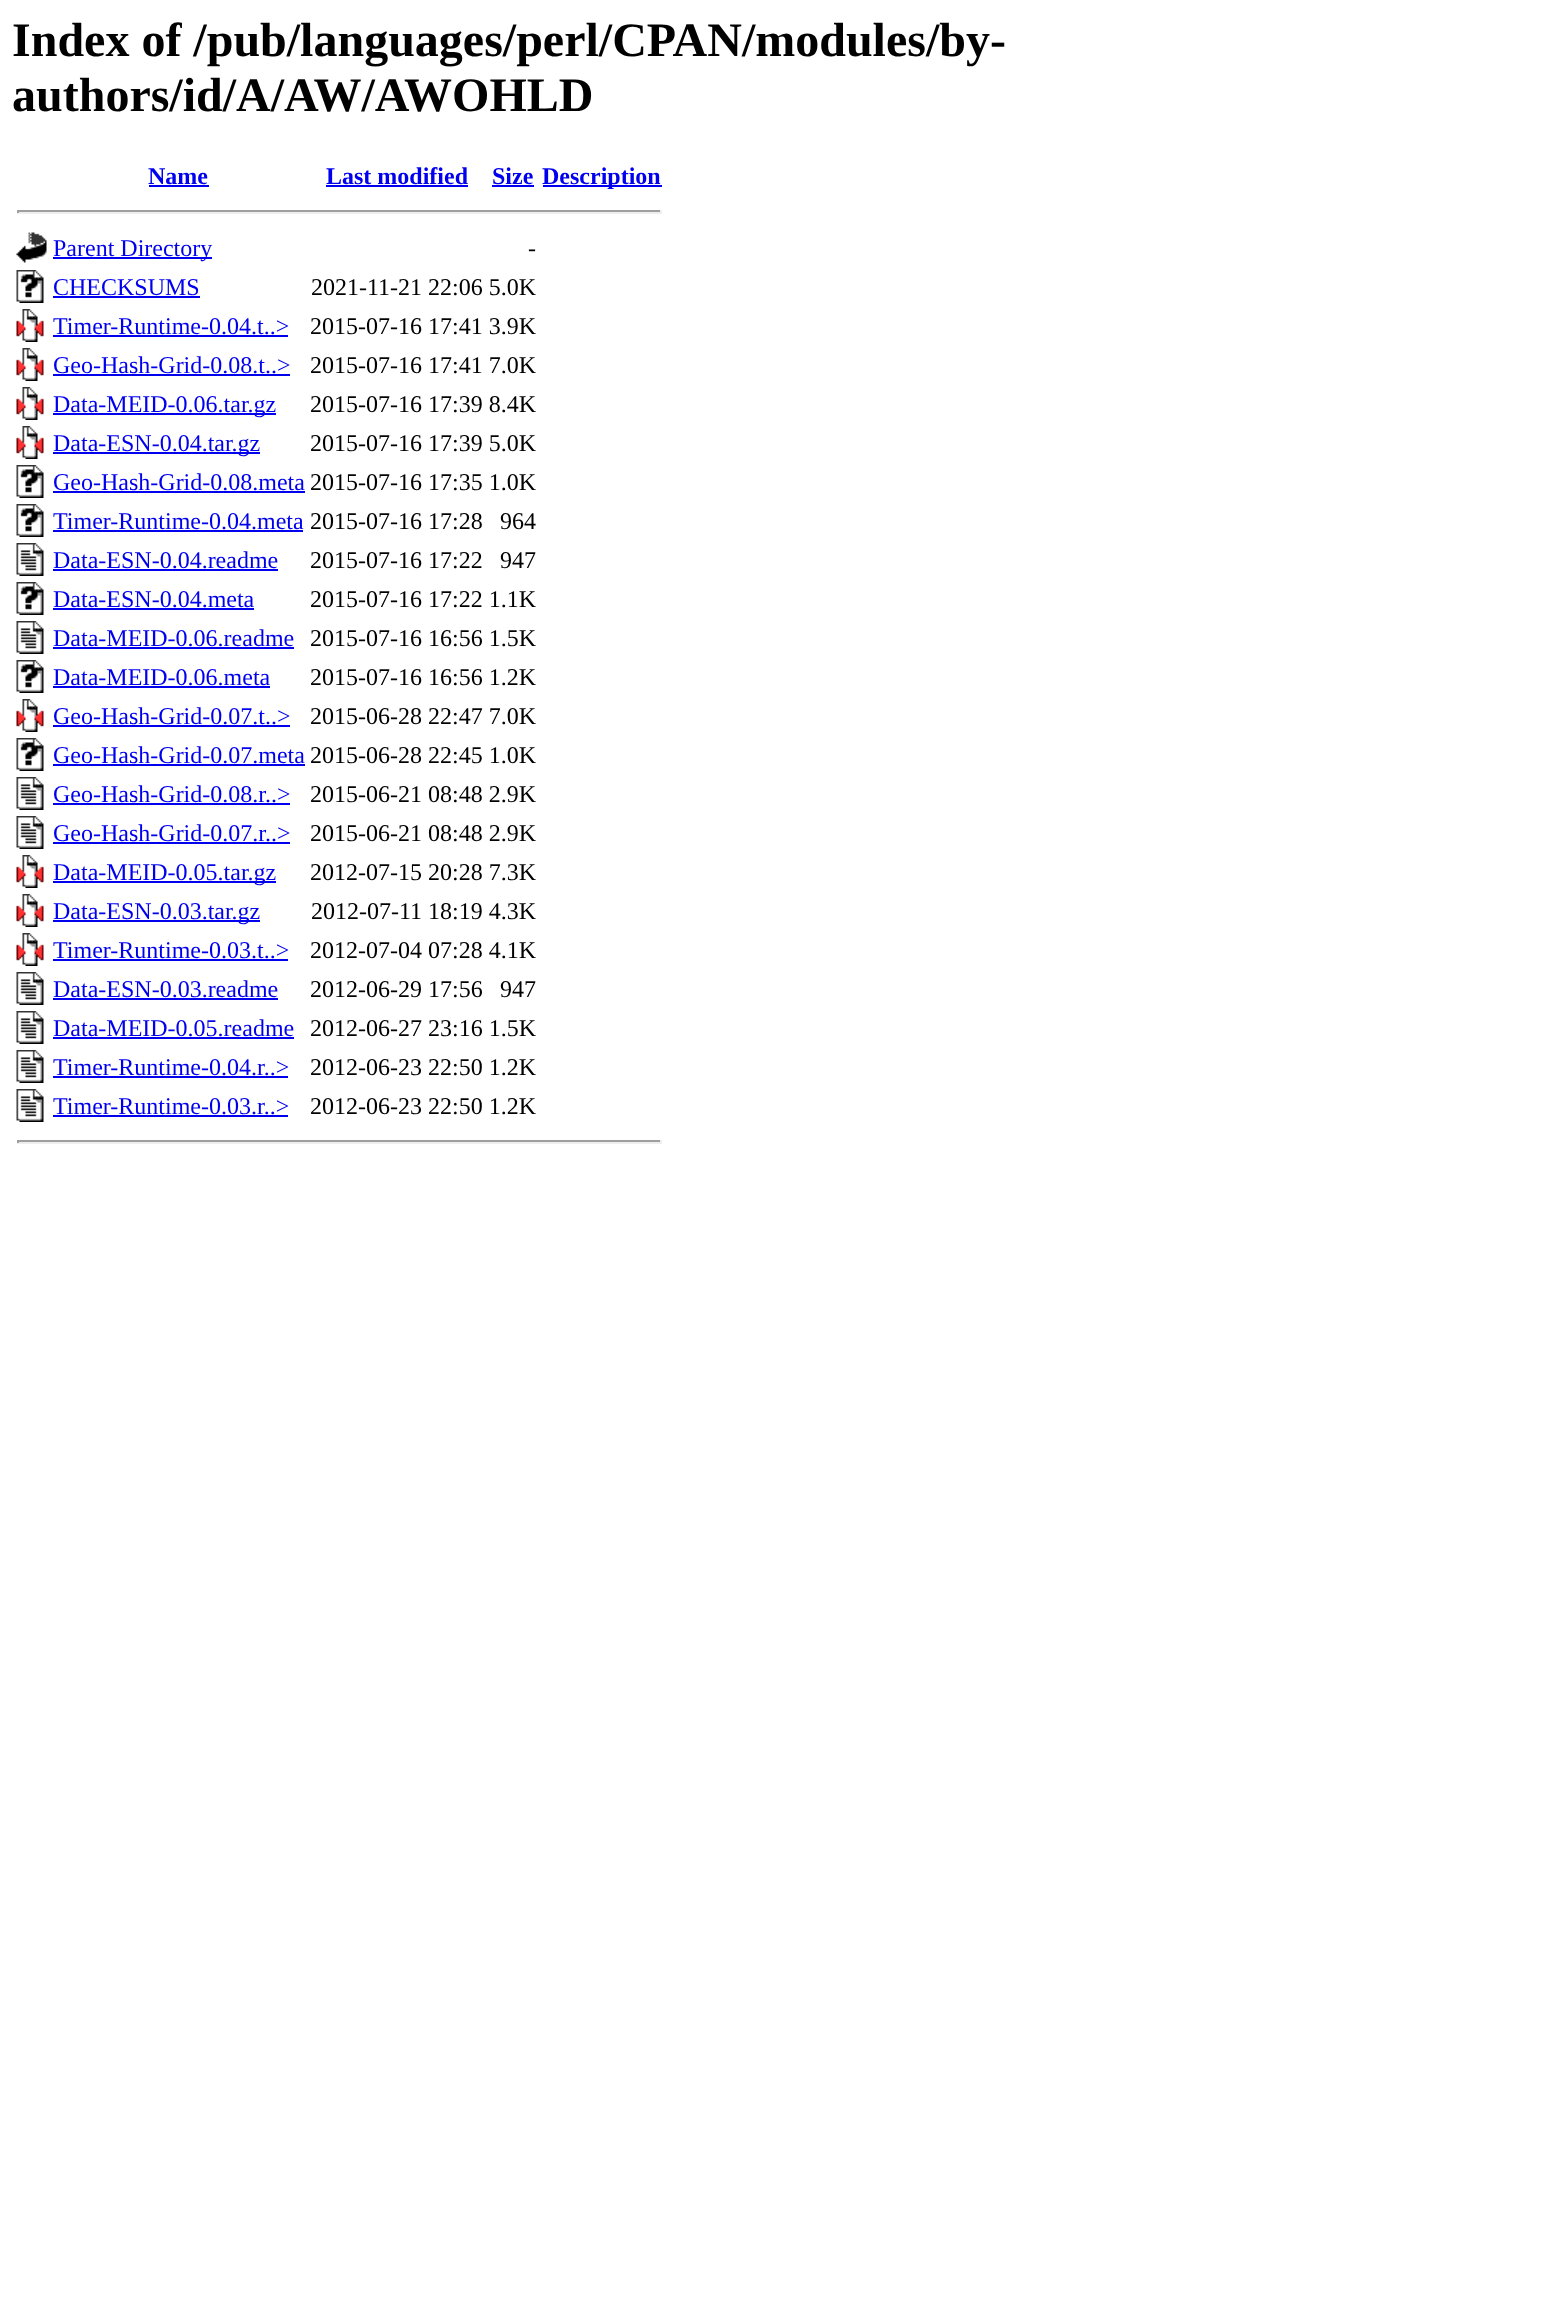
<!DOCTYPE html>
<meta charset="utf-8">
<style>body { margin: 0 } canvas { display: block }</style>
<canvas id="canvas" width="1554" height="2306"></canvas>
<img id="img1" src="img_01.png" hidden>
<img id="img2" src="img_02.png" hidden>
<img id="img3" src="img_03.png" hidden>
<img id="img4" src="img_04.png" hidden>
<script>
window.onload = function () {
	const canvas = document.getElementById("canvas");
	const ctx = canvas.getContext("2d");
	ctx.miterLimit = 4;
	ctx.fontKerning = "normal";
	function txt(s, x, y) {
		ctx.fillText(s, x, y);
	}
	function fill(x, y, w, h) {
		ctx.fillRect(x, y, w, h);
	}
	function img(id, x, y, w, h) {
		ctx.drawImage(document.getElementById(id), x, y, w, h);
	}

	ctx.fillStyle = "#FFFFFF";
	fill(0, 0, 1554, 2306);
	ctx.fillStyle = "#0000EE";
	fill(149, 185, 60, 2);
	fill(326, 185, 142, 2);
	fill(492, 185, 42, 2);
	fill(543, 185, 119, 2);
	ctx.fillStyle = "#9F9F9F";
	fill(17, 210, 645, 2);
	ctx.fillStyle = "#EEEEEE";
	fill(660, 210, 2, 3);
	fill(17, 212, 645, 2);
	ctx.fillStyle = "#9F9F9F";
	fill(17, 210, 2, 3);
	img("img1", 16, 232, 31, 31);
	ctx.fillStyle = "#0000EE";
	fill(53, 257, 159, 2);
	img("img2", 16, 270, 28, 33);
	fill(53, 296, 147, 2);
	img("img3", 16, 309, 28, 33);
	fill(53, 335, 235, 2);
	img("img3", 16, 348, 28, 33);
	fill(53, 374, 237, 2);
	img("img3", 16, 387, 28, 33);
	fill(53, 413, 223, 2);
	img("img3", 16, 426, 28, 33);
	fill(53, 452, 207, 2);
	img("img2", 16, 465, 28, 33);
	fill(53, 491, 252, 2);
	img("img2", 16, 504, 28, 33);
	fill(53, 530, 250, 2);
	img("img4", 16, 543, 28, 33);
	fill(53, 569, 225, 2);
	img("img2", 16, 582, 28, 33);
	fill(53, 608, 201, 2);
	img("img4", 16, 621, 28, 33);
	fill(53, 647, 241, 2);
	img("img2", 16, 660, 28, 33);
	fill(53, 686, 217, 2);
	img("img3", 16, 699, 28, 33);
	fill(53, 725, 237, 2);
	img("img2", 16, 738, 28, 33);
	fill(53, 764, 252, 2);
	img("img4", 16, 777, 28, 33);
	fill(53, 803, 237, 2);
	img("img4", 16, 816, 28, 33);
	fill(53, 842, 237, 2);
	img("img3", 16, 855, 28, 33);
	fill(53, 881, 223, 2);
	img("img3", 16, 894, 28, 33);
	fill(53, 920, 207, 2);
	img("img3", 16, 933, 28, 33);
	fill(53, 959, 235, 2);
	img("img4", 16, 972, 28, 33);
	fill(53, 998, 225, 2);
	img("img4", 16, 1011, 28, 33);
	fill(53, 1037, 241, 2);
	img("img4", 16, 1050, 28, 33);
	fill(53, 1076, 235, 2);
	img("img4", 16, 1089, 28, 33);
	fill(53, 1115, 235, 2);
	ctx.fillStyle = "#9F9F9F";
	fill(17, 1140, 645, 2);
	ctx.fillStyle = "#EEEEEE";
	fill(660, 1140, 2, 3);
	fill(17, 1142, 645, 2);
	ctx.fillStyle = "#9F9F9F";
	fill(17, 1140, 2, 3);
	ctx.font = "bold 48px Liberation Serif";
	ctx.fillStyle = "#000000";
	txt("Index of /pub/languages/perl/CPAN/modules/by-", 12, 56);
	txt("authors/id/A/AW/AWOHLD", 12, 111);
	ctx.font = "bold 24px Liberation Serif";
	ctx.fillStyle = "#0000EE";
	txt("Name", 148, 184);
	txt("Last modified", 326, 184);
	txt("Size", 492, 184);
	txt("Description", 542, 184);
	ctx.font = "24px Liberation Serif";
	txt("Parent Directory", 53, 256);
	ctx.fillStyle = "#000000";
	txt("-", 528, 256);
	ctx.fillStyle = "#0000EE";
	txt("CHECKSUMS", 53, 295);
	ctx.fillStyle = "#000000";
	txt("2021-11-21 22:06 5.0K", 311, 295);
	ctx.fillStyle = "#0000EE";
	txt("Timer-Runtime-0.04.t..>", 53, 334);
	ctx.fillStyle = "#000000";
	txt("2015-07-16 17:41 3.9K", 310, 334);
	ctx.fillStyle = "#0000EE";
	txt("Geo-Hash-Grid-0.08.t..>", 53, 373);
	ctx.fillStyle = "#000000";
	txt("2015-07-16 17:41 7.0K", 310, 373);
	ctx.fillStyle = "#0000EE";
	txt("Data-MEID-0.06.tar.gz", 53, 412);
	ctx.fillStyle = "#000000";
	txt("2015-07-16 17:39 8.4K", 310, 412);
	ctx.fillStyle = "#0000EE";
	txt("Data-ESN-0.04.tar.gz", 53, 451);
	ctx.fillStyle = "#000000";
	txt("2015-07-16 17:39 5.0K", 310, 451);
	ctx.fillStyle = "#0000EE";
	txt("Geo-Hash-Grid-0.08.meta", 53, 490);
	ctx.fillStyle = "#000000";
	txt("2015-07-16 17:35 1.0K", 310, 490);
	ctx.fillStyle = "#0000EE";
	txt("Timer-Runtime-0.04.meta", 53, 529);
	ctx.fillStyle = "#000000";
	txt("2015-07-16 17:28", 310, 529);
	txt("964", 500, 529);
	ctx.fillStyle = "#0000EE";
	txt("Data-ESN-0.04.readme", 53, 568);
	ctx.fillStyle = "#000000";
	txt("2015-07-16 17:22", 310, 568);
	txt("947", 500, 568);
	ctx.fillStyle = "#0000EE";
	txt("Data-ESN-0.04.meta", 53, 607);
	ctx.fillStyle = "#000000";
	txt("2015-07-16 17:22 1.1K", 310, 607);
	ctx.fillStyle = "#0000EE";
	txt("Data-MEID-0.06.readme", 53, 646);
	ctx.fillStyle = "#000000";
	txt("2015-07-16 16:56 1.5K", 310, 646);
	ctx.fillStyle = "#0000EE";
	txt("Data-MEID-0.06.meta", 53, 685);
	ctx.fillStyle = "#000000";
	txt("2015-07-16 16:56 1.2K", 310, 685);
	ctx.fillStyle = "#0000EE";
	txt("Geo-Hash-Grid-0.07.t..>", 53, 724);
	ctx.fillStyle = "#000000";
	txt("2015-06-28 22:47 7.0K", 310, 724);
	ctx.fillStyle = "#0000EE";
	txt("Geo-Hash-Grid-0.07.meta", 53, 763);
	ctx.fillStyle = "#000000";
	txt("2015-06-28 22:45 1.0K", 310, 763);
	ctx.fillStyle = "#0000EE";
	txt("Geo-Hash-Grid-0.08.r..>", 53, 802);
	ctx.fillStyle = "#000000";
	txt("2015-06-21 08:48 2.9K", 310, 802);
	ctx.fillStyle = "#0000EE";
	txt("Geo-Hash-Grid-0.07.r..>", 53, 841);
	ctx.fillStyle = "#000000";
	txt("2015-06-21 08:48 2.9K", 310, 841);
	ctx.fillStyle = "#0000EE";
	txt("Data-MEID-0.05.tar.gz", 53, 880);
	ctx.fillStyle = "#000000";
	txt("2012-07-15 20:28 7.3K", 310, 880);
	ctx.fillStyle = "#0000EE";
	txt("Data-ESN-0.03.tar.gz", 53, 919);
	ctx.fillStyle = "#000000";
	txt("2012-07-11 18:19 4.3K", 311, 919);
	ctx.fillStyle = "#0000EE";
	txt("Timer-Runtime-0.03.t..>", 53, 958);
	ctx.fillStyle = "#000000";
	txt("2012-07-04 07:28 4.1K", 310, 958);
	ctx.fillStyle = "#0000EE";
	txt("Data-ESN-0.03.readme", 53, 997);
	ctx.fillStyle = "#000000";
	txt("2012-06-29 17:56", 310, 997);
	txt("947", 500, 997);
	ctx.fillStyle = "#0000EE";
	txt("Data-MEID-0.05.readme", 53, 1036);
	ctx.fillStyle = "#000000";
	txt("2012-06-27 23:16 1.5K", 310, 1036);
	ctx.fillStyle = "#0000EE";
	txt("Timer-Runtime-0.04.r..>", 53, 1075);
	ctx.fillStyle = "#000000";
	txt("2012-06-23 22:50 1.2K", 310, 1075);
	ctx.fillStyle = "#0000EE";
	txt("Timer-Runtime-0.03.r..>", 53, 1114);
	ctx.fillStyle = "#000000";
	txt("2012-06-23 22:50 1.2K", 310, 1114);
};
</script>
